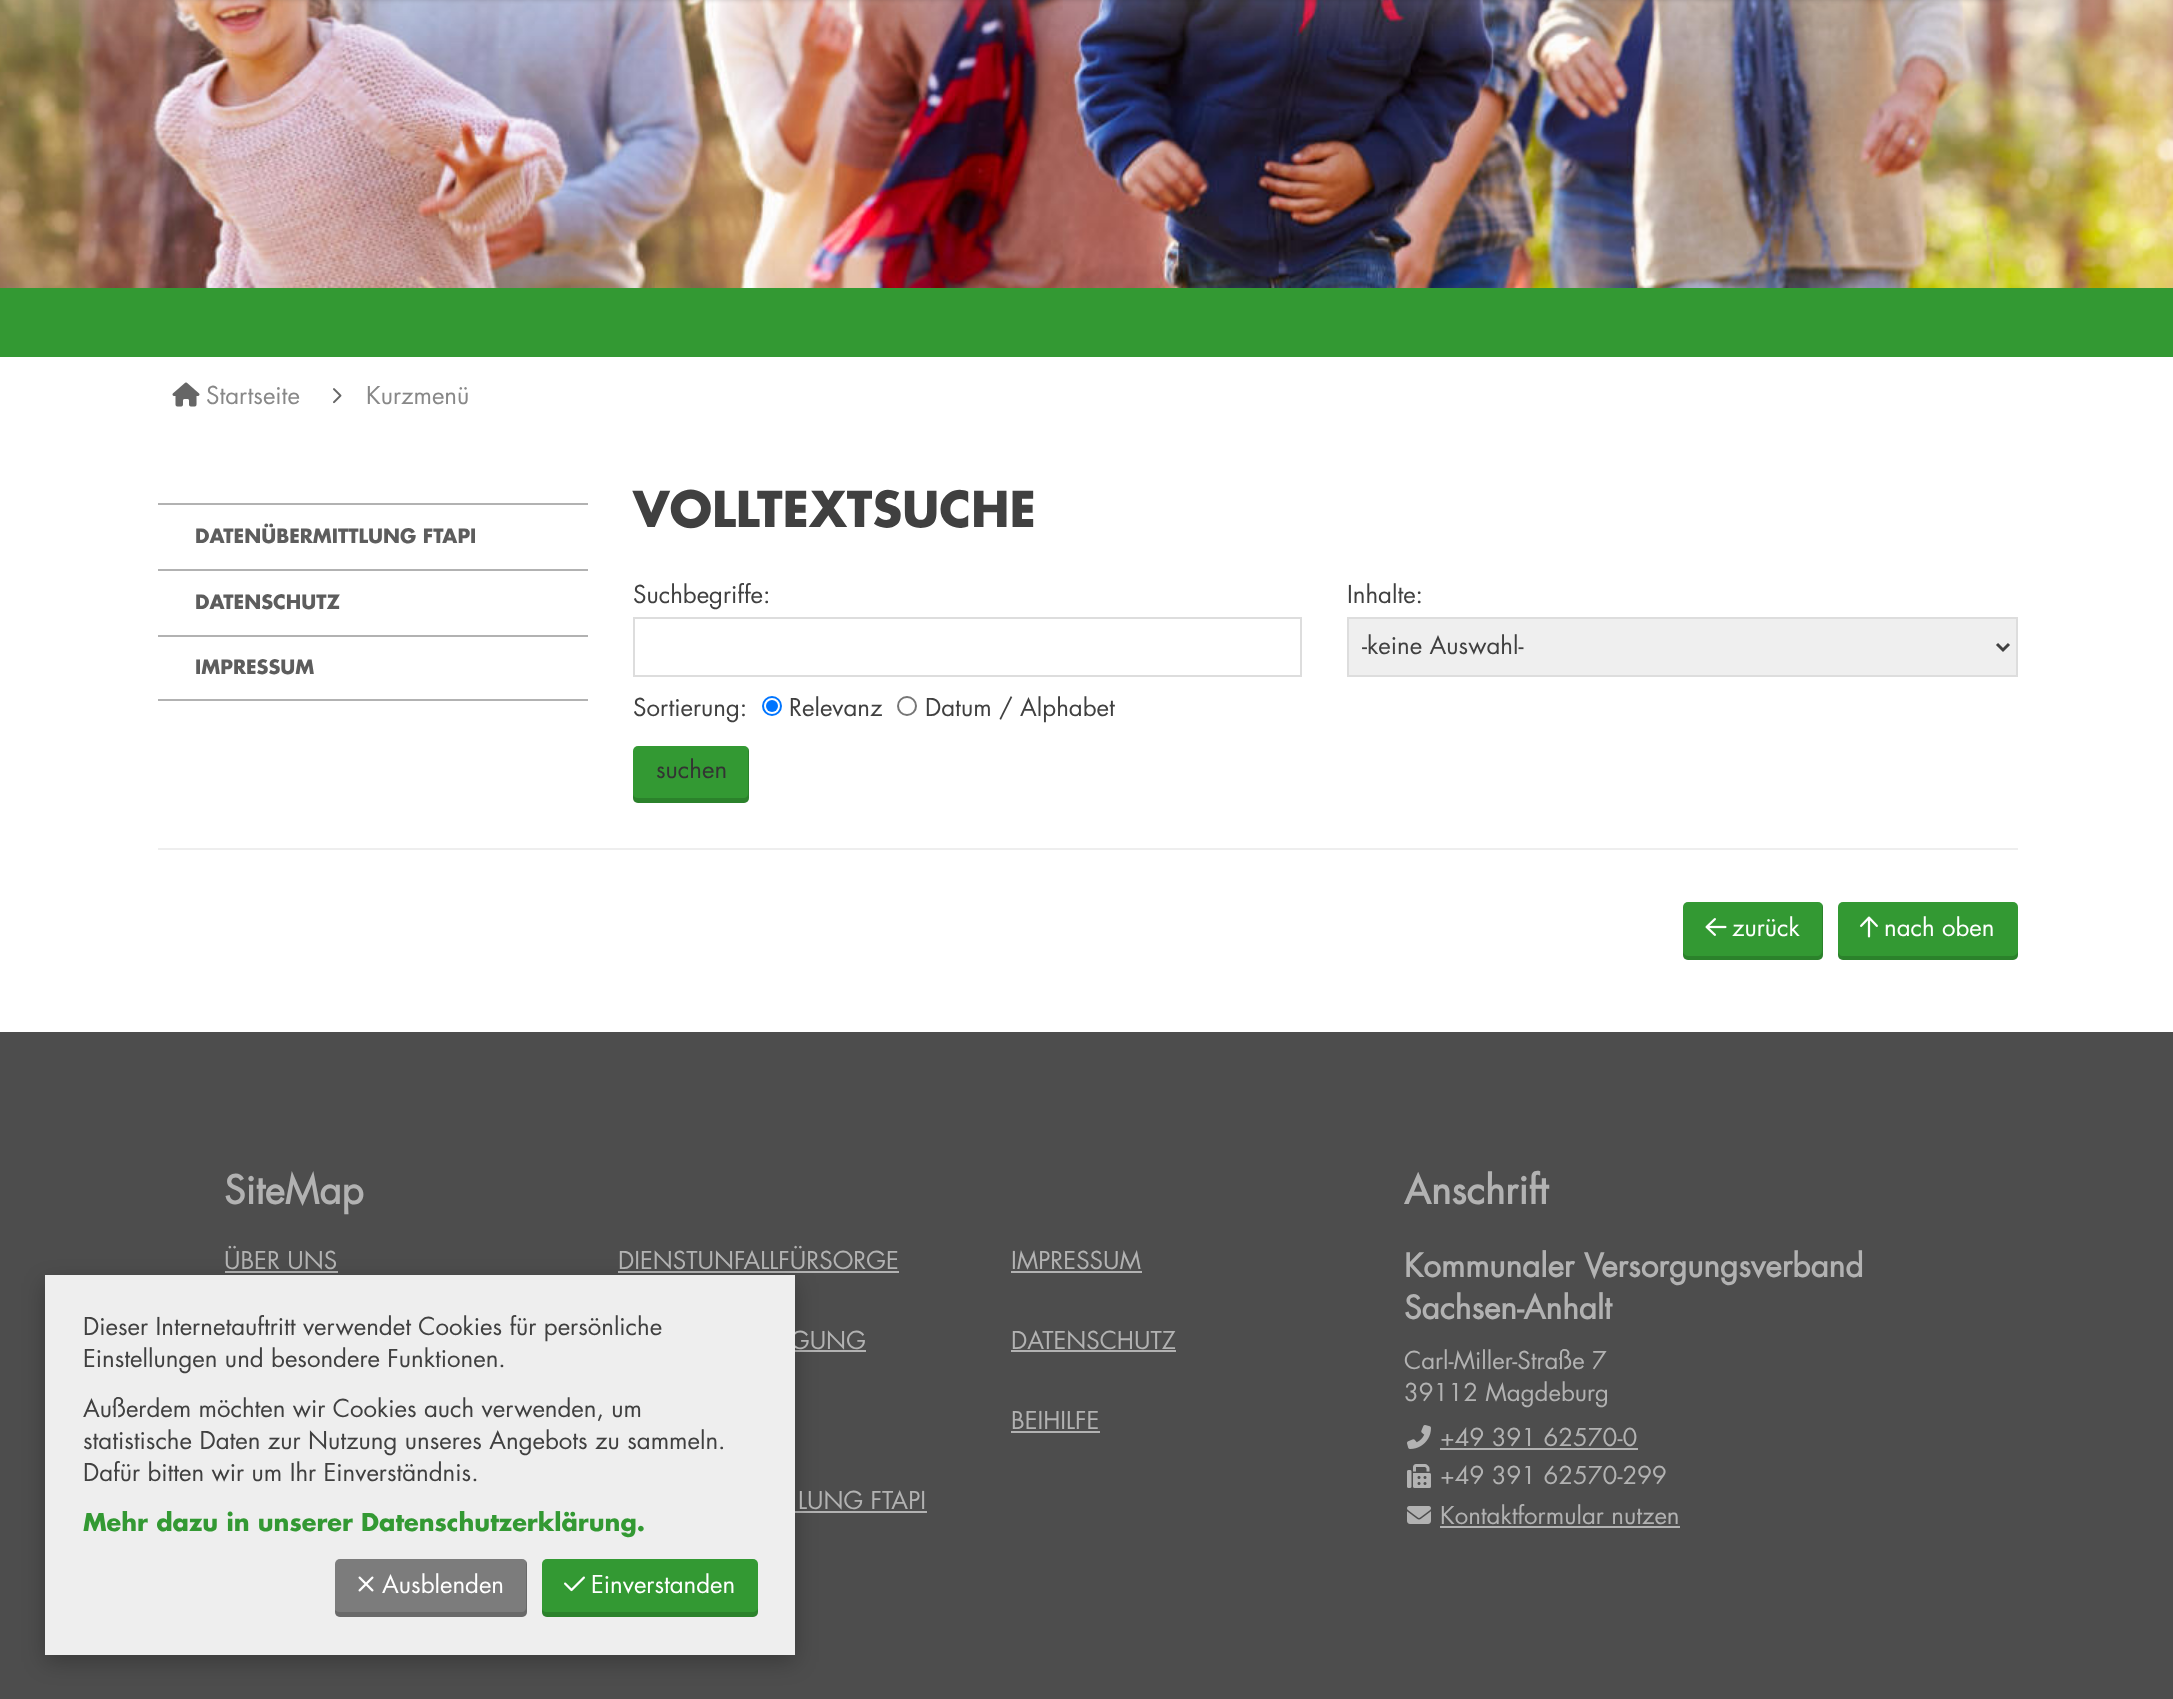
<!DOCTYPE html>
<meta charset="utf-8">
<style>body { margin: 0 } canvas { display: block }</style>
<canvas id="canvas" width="2173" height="1699"></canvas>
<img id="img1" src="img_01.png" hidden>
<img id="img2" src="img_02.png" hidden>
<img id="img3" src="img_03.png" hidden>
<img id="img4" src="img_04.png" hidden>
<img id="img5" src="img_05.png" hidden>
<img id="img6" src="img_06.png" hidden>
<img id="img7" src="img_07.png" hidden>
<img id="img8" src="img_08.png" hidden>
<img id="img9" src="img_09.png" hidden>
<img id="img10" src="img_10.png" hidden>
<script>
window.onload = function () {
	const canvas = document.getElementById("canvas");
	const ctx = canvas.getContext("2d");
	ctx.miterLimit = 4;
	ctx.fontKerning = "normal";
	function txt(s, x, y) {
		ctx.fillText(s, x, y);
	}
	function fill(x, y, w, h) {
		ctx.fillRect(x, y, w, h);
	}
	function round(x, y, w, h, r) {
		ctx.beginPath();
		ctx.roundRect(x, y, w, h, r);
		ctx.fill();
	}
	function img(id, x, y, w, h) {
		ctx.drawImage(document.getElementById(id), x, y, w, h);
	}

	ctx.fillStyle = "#FFFFFF";
	fill(0, 0, 2173, 1699);
	img("img1", 0, 0, 2173, 288);
	ctx.fillStyle = "#339933";
	fill(0, 288, 2173, 69);
	ctx.fillStyle = "rgba(0, 0, 0, 0.47)";
	ctx.filter = "blur(3px)";
	ctx.beginPath();
	ctx.roundRect(159, -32, 1860, 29, 23);
	ctx.fill();
	ctx.filter = "none";
	img("img2", 172, 382, 28, 25);
	img("img3", 333, 388, 9, 16);
	ctx.fillStyle = "#B2B2B2";
	fill(158, 503, 430, 2);
	fill(158, 569, 430, 2);
	fill(158, 635, 430, 2);
	fill(158, 699, 430, 2);
	ctx.strokeStyle = "#DDDDDD";
	ctx.lineWidth = 2;
	ctx.strokeRect(634, 618, 667, 58);
	ctx.fillStyle = "#EFEFEF";
	ctx.beginPath();
	ctx.rect(1348, 618, 669, 58);
	ctx.fill();
	ctx.stroke();
	ctx.beginPath();
	ctx.moveTo(1997, 644);
	ctx.lineTo(2003, 650);
	ctx.lineTo(2009, 644);
	ctx.strokeStyle = "#404040";
	ctx.lineWidth = 3;
	ctx.stroke();
	ctx.beginPath();
	ctx.arc(772, 706, 9, 0, Math.PI * 2);
	ctx.strokeStyle = "#0075FF";
	ctx.lineWidth = 2;
	ctx.stroke();
	ctx.fillStyle = "#0075FF";
	ctx.beginPath();
	ctx.arc(772, 706, 6, 0, Math.PI * 2);
	ctx.fill();
	ctx.beginPath();
	ctx.arc(907, 706, 9, 0, Math.PI * 2);
	ctx.strokeStyle = "#767676";
	ctx.stroke();
	ctx.fillStyle = "#339933";
	round(633, 746, 116, 57, 5);
	ctx.fillStyle = "rgba(0, 0, 0, 0.15)";
	ctx.beginPath();
	ctx.moveTo(633, 794);
	ctx.lineTo(633, 798);
	ctx.bezierCurveTo(633, 801, 635, 803, 638, 803);
	ctx.lineTo(744, 803);
	ctx.bezierCurveTo(747, 803, 749, 801, 749, 798);
	ctx.lineTo(749, 751);
	ctx.bezierCurveTo(749, 750, 749, 749, 748, 748);
	ctx.lineTo(748, 794);
	ctx.bezierCurveTo(748, 796, 746, 798, 744, 798);
	ctx.lineTo(638, 798);
	ctx.bezierCurveTo(635, 798, 633, 796, 633, 794);
	ctx.closePath();
	ctx.fill();
	ctx.fillStyle = "#EEEEEE";
	fill(158, 848, 1860, 2);
	ctx.fillStyle = "#339933";
	round(1683, 902, 140, 58, 5);
	ctx.fillStyle = "rgba(0, 0, 0, 0.15)";
	ctx.beginPath();
	ctx.moveTo(1683, 951);
	ctx.lineTo(1683, 955);
	ctx.bezierCurveTo(1683, 958, 1685, 960, 1688, 960);
	ctx.lineTo(1818, 960);
	ctx.bezierCurveTo(1821, 960, 1823, 958, 1823, 955);
	ctx.lineTo(1823, 907);
	ctx.bezierCurveTo(1823, 906, 1823, 905, 1822, 904);
	ctx.lineTo(1822, 951);
	ctx.bezierCurveTo(1822, 953, 1820, 956, 1818, 956);
	ctx.lineTo(1688, 956);
	ctx.bezierCurveTo(1685, 956, 1683, 953, 1683, 951);
	ctx.closePath();
	ctx.fill();
	img("img4", 1705, 918, 22, 18);
	ctx.fillStyle = "#339933";
	round(1838, 902, 180, 58, 5);
	ctx.fillStyle = "rgba(0, 0, 0, 0.15)";
	ctx.beginPath();
	ctx.moveTo(1838, 951);
	ctx.lineTo(1838, 955);
	ctx.bezierCurveTo(1838, 958, 1840, 960, 1843, 960);
	ctx.lineTo(2013, 960);
	ctx.bezierCurveTo(2016, 960, 2018, 958, 2018, 955);
	ctx.lineTo(2018, 951);
	ctx.bezierCurveTo(2018, 953, 2015, 956, 2013, 956);
	ctx.lineTo(1842, 956);
	ctx.bezierCurveTo(1840, 956, 1838, 953, 1838, 951);
	ctx.closePath();
	ctx.fill();
	img("img5", 1860, 916, 18, 22);
	ctx.fillStyle = "#4D4D4D";
	fill(0, 1032, 2173, 667);
	ctx.fillStyle = "#B2B2B2";
	fill(225, 1271, 113, 2);
	fill(618, 1271, 281, 2);
	fill(1011, 1271, 131, 2);
	fill(795, 1350, 71, 2);
	fill(1011, 1350, 165, 2);
	fill(1011, 1431, 89, 2);
	fill(795, 1511, 132, 2);
	img("img6", 1407, 1425, 24, 24);
	fill(1440, 1448, 198, 2);
	img("img7", 1407, 1464, 24, 24);
	img("img8", 1407, 1506, 24, 18);
	fill(1440, 1526, 240, 2);
	ctx.fillStyle = "rgba(0, 0, 0, 0.25)";
	ctx.filter = "blur(11px)";
	ctx.beginPath();
	ctx.rect(45, 1283, 750, 379);
	ctx.fill();
	ctx.filter = "none";
	ctx.font = "24px Futura";
	ctx.fillStyle = "#888888";
	txt("Startseite", 206, 404);
	txt("Kurzmenü", 366, 404);
	ctx.font = "bold 19.25px 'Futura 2'";
	ctx.fillStyle = "#5D5D5D";
	txt("DATENÜBERMITTLUNG FTAPI", 195, 543);
	txt("DATENSCHUTZ", 195, 609);
	txt("IMPRESSUM", 195, 674);
	ctx.font = "bold 48px 'Futura 2'";
	ctx.fillStyle = "#404040";
	txt("VOLLTEXTSUCHE", 633, 527);
	ctx.font = "24px Futura";
	txt("Suchbegriffe:", 633, 603);
	txt("Inhalte:", 1347, 603);
	txt("-keine Auswahl-", 1362, 654);
	txt("Sortierung:", 633, 716);
	txt("Relevanz", 789, 716);
	txt("Datum / Alphabet", 925, 716);
	ctx.fillStyle = "#333333";
	txt("suchen", 656, 778);
	ctx.fillStyle = "#FFFFFF";
	txt("zurück", 1732, 936);
	txt("nach oben", 1884, 936);
	ctx.font = "bold 38.5px Futura";
	ctx.fillStyle = "#B2B2B2";
	txt("SiteMap", 224, 1204);
	ctx.font = "24px Futura";
	txt("ÜBER UNS", 224, 1269);
	txt("DIENSTUNFALLFÜRSORGE", 618, 1269);
	txt("IMPRESSUM", 1011, 1269);
	txt("GUNG", 790, 1349);
	txt("DATENSCHUTZ", 1011, 1349);
	txt("BEIHILFE", 1011, 1429);
	txt("LUNG FTAPI", 798, 1509);
	ctx.font = "bold 38.5px Futura";
	txt("Anschrift", 1404, 1204);
	ctx.font = "bold 31.5px Futura";
	txt("Kommunaler Versorgungsverband", 1404, 1277);
	txt("Sachsen-Anhalt", 1404, 1319);
	ctx.font = "24px Futura";
	txt("Carl-Miller-Straße 7", 1404, 1369);
	txt("39112 Magdeburg", 1404, 1401);
	txt("+49 391 62570-0", 1440, 1446);
	txt("+49 391 62570-299", 1440, 1484);
	txt("Kontaktformular nutzen", 1440, 1524);
	ctx.fillStyle = "#EEEEEE";
	fill(45, 1275, 750, 380);
	ctx.fillStyle = "#404040";
	txt("Dieser Internetauftritt verwendet Cookies für persönliche", 83, 1335);
	txt("Einstellungen und besondere Funktionen.", 83, 1367);
	txt("Außerdem möchten wir Cookies auch verwenden, um", 83, 1417);
	txt("statistische Daten zur Nutzung unseres Angebots zu sammeln.", 83, 1449);
	txt("Dafür bitten wir um Ihr Einverständnis.", 83, 1481);
	ctx.font = "bold 24px 'Futura 2'";
	ctx.fillStyle = "#339933";
	txt("Mehr dazu in unserer Datenschutzerklärung.", 83, 1531);
	ctx.fillStyle = "#7C7C7C";
	round(335, 1559, 192, 58, 5);
	ctx.fillStyle = "rgba(0, 0, 0, 0.15)";
	ctx.beginPath();
	ctx.moveTo(335, 1610);
	ctx.lineTo(335, 1612);
	ctx.bezierCurveTo(335, 1615, 337, 1617, 340, 1617);
	ctx.lineTo(522, 1617);
	ctx.bezierCurveTo(525, 1617, 527, 1615, 527, 1612);
	ctx.lineTo(527, 1564);
	ctx.bezierCurveTo(527, 1563, 527, 1562, 526, 1561);
	ctx.lineTo(526, 1608);
	ctx.bezierCurveTo(526, 1610, 524, 1612, 522, 1612);
	ctx.lineTo(339, 1612);
	ctx.bezierCurveTo(338, 1612, 336, 1611, 335, 1610);
	ctx.closePath();
	ctx.fill();
	img("img9", 358, 1576, 16, 16);
	ctx.font = "24px Futura";
	ctx.fillStyle = "#FFFFFF";
	txt("Ausblenden", 382, 1593);
	ctx.fillStyle = "#339933";
	round(542, 1559, 216, 58, 5);
	ctx.fillStyle = "rgba(0, 0, 0, 0.15)";
	ctx.beginPath();
	ctx.moveTo(542, 1608);
	ctx.lineTo(542, 1612);
	ctx.bezierCurveTo(542, 1615, 544, 1617, 547, 1617);
	ctx.lineTo(753, 1617);
	ctx.bezierCurveTo(756, 1617, 758, 1615, 758, 1612);
	ctx.lineTo(758, 1608);
	ctx.bezierCurveTo(758, 1610, 755, 1612, 753, 1612);
	ctx.lineTo(546, 1612);
	ctx.bezierCurveTo(544, 1612, 542, 1610, 542, 1608);
	ctx.closePath();
	ctx.fill();
	img("img10", 564, 1576, 21, 16);
	ctx.fillStyle = "#FFFFFF";
	txt("Einverstanden", 591, 1593);
};
</script>
